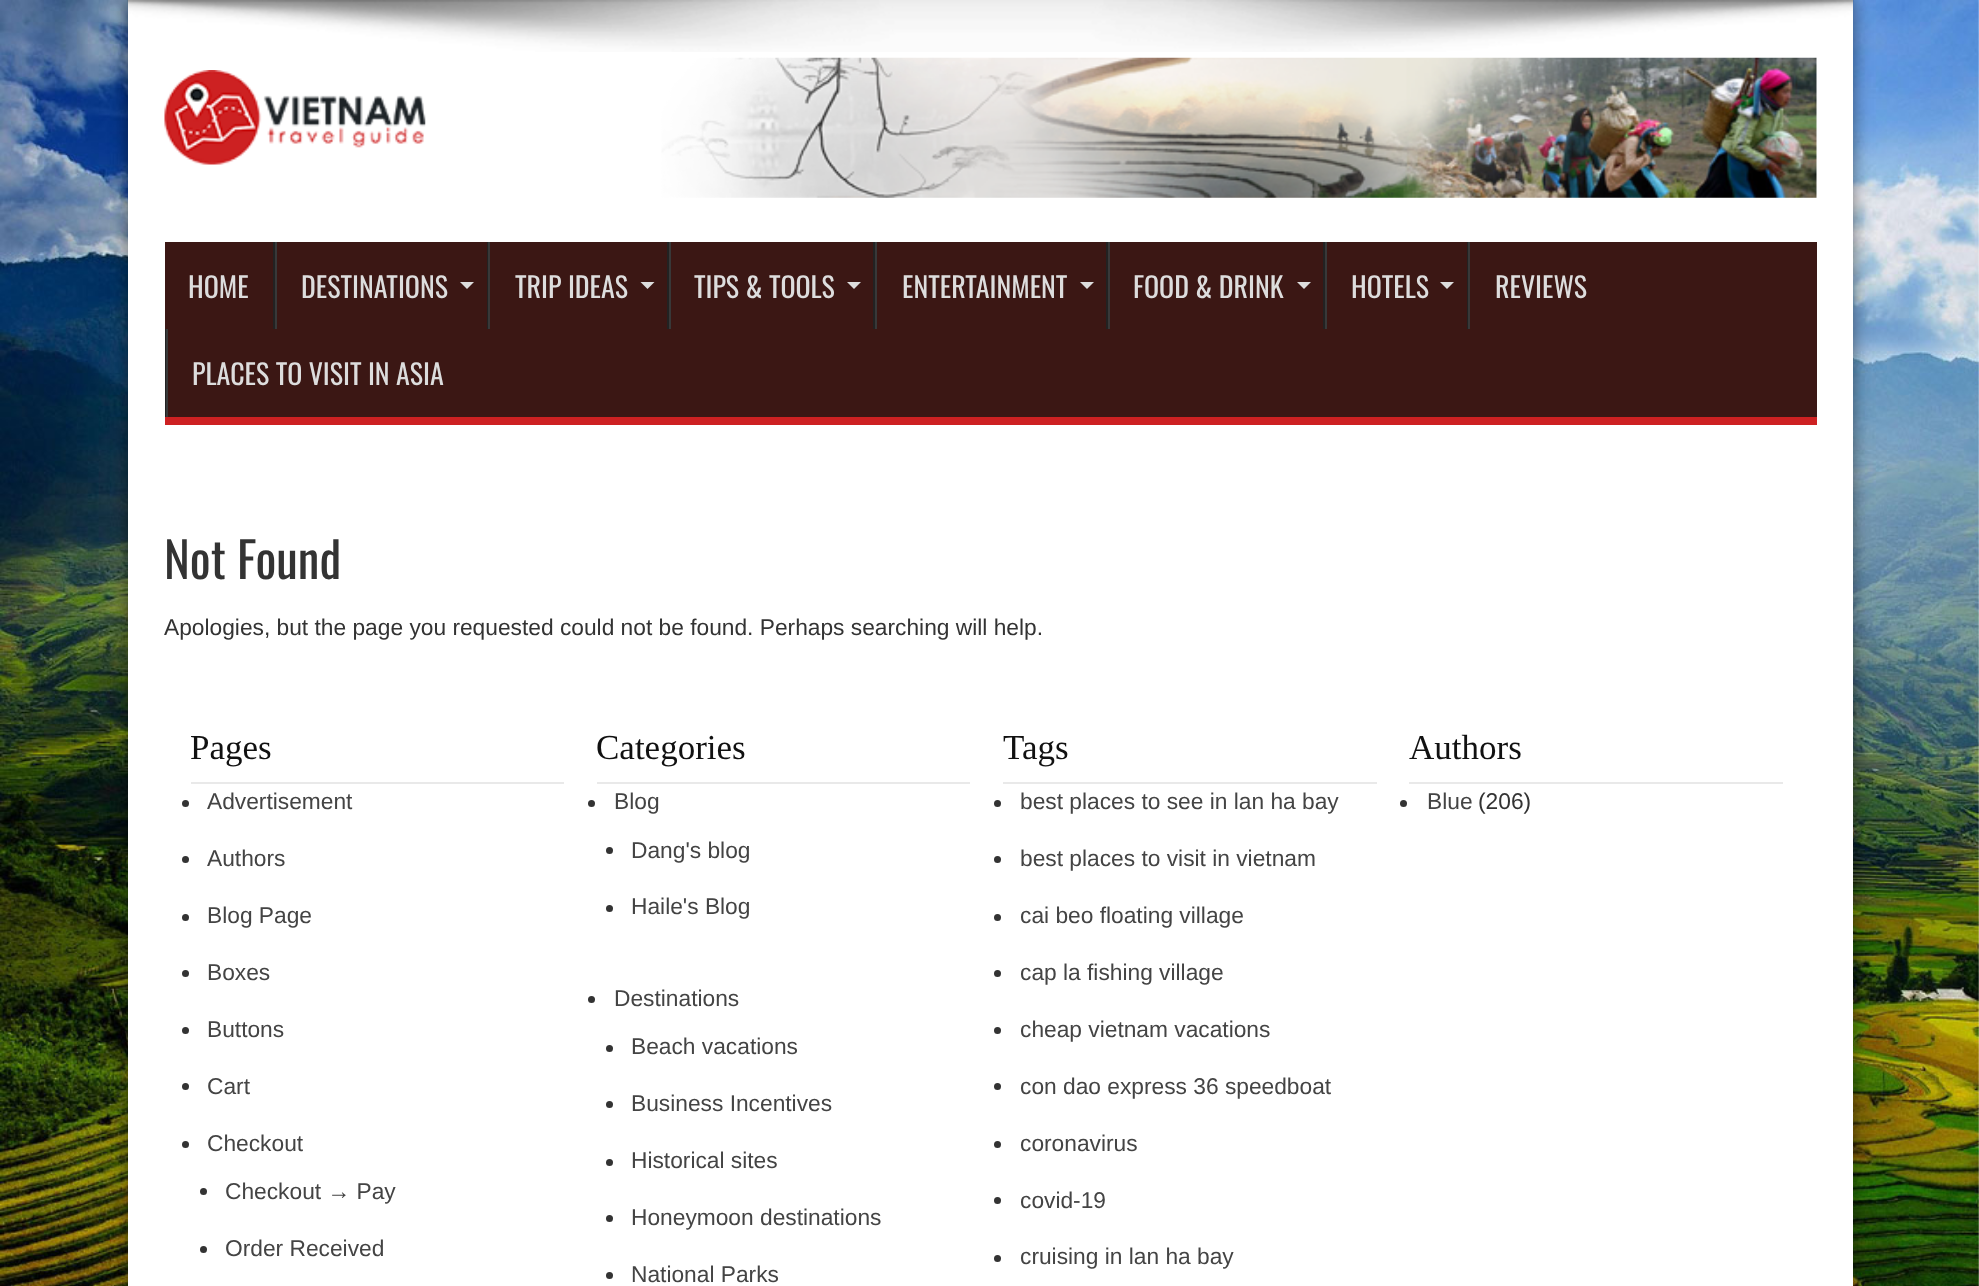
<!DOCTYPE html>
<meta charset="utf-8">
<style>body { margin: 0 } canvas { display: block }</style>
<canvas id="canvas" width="1979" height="1286"></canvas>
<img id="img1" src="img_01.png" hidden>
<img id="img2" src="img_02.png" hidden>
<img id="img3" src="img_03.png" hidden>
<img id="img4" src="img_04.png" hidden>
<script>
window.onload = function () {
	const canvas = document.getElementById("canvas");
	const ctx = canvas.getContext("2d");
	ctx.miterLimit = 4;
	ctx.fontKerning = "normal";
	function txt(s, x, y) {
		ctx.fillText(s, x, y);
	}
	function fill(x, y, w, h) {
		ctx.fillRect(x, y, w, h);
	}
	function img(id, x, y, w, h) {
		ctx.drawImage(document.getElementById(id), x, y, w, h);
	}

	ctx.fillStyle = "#FFFFFF";
	fill(0, 0, 1979, 1286);
	img("img1", 0, 0, 1979, 1286);
	ctx.fillStyle = "rgba(0, 0, 0, 0.5)";
	ctx.filter = "blur(9px)";
	ctx.beginPath();
	ctx.rect(128, 0, 1725, 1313);
	ctx.fill();
	ctx.filter = "none";
	ctx.fillStyle = "#FFFFFF";
	fill(128, 0, 1725, 1286);
	img("img2", 127, 0, 1727, 52);
	img("img3", 164, 70, 262, 95);
	img("img4", 661, 57, 1156, 141);
	ctx.fillStyle = "#3B1714";
	fill(165, 242, 1652, 175);
	ctx.fillStyle = "#CD2122";
	fill(165, 417, 1652, 8);
	ctx.fillStyle = "#222222";
	fill(273, 242, 2, 87);
	ctx.fillStyle = "#383838";
	fill(275, 242, 2, 87);
	ctx.fillStyle = "#DDDDDD";
	ctx.beginPath();
	ctx.moveTo(460, 282);
	ctx.lineTo(474, 282);
	ctx.lineTo(467, 289);
	ctx.closePath();
	ctx.fill();
	ctx.fillStyle = "#222222";
	fill(487, 242, 1, 87);
	ctx.fillStyle = "#383838";
	fill(488, 242, 2, 87);
	ctx.fillStyle = "#DDDDDD";
	ctx.beginPath();
	ctx.moveTo(640.5, 282);
	ctx.lineTo(654.5, 282);
	ctx.lineTo(647.5, 289);
	ctx.closePath();
	ctx.fill();
	ctx.fillStyle = "#222222";
	fill(667, 242, 2, 87);
	ctx.fillStyle = "#383838";
	fill(669, 242, 2, 87);
	ctx.fillStyle = "#DDDDDD";
	ctx.beginPath();
	ctx.moveTo(847, 282);
	ctx.lineTo(861, 282);
	ctx.lineTo(854, 289);
	ctx.closePath();
	ctx.fill();
	ctx.fillStyle = "#222222";
	fill(873, 242, 2, 87);
	ctx.fillStyle = "#383838";
	fill(875, 242, 2, 87);
	ctx.fillStyle = "#DDDDDD";
	ctx.beginPath();
	ctx.moveTo(1080, 282);
	ctx.lineTo(1094, 282);
	ctx.lineTo(1087, 289);
	ctx.closePath();
	ctx.fill();
	ctx.fillStyle = "#222222";
	fill(1106, 242, 2, 87);
	ctx.fillStyle = "#383838";
	fill(1108, 242, 2, 87);
	ctx.fillStyle = "#DDDDDD";
	ctx.beginPath();
	ctx.moveTo(1297, 282);
	ctx.lineTo(1311, 282);
	ctx.lineTo(1304, 289);
	ctx.closePath();
	ctx.fill();
	ctx.fillStyle = "#222222";
	fill(1323, 242, 2, 87);
	ctx.fillStyle = "#383838";
	fill(1325, 242, 2, 87);
	ctx.fillStyle = "#DDDDDD";
	ctx.beginPath();
	ctx.moveTo(1440, 282);
	ctx.lineTo(1454, 282);
	ctx.lineTo(1447, 289);
	ctx.closePath();
	ctx.fill();
	ctx.fillStyle = "#222222";
	fill(1467, 242, 1, 87);
	ctx.fillStyle = "#383838";
	fill(1468, 242, 2, 87);
	ctx.fillStyle = "#222222";
	fill(165, 329, 1, 88);
	ctx.fillStyle = "#383838";
	fill(166, 329, 2, 88);
	ctx.fillStyle = "#E9E9E9";
	fill(191, 782, 373, 2);
	ctx.fillStyle = "#333333";
	ctx.beginPath();
	ctx.arc(185.5, 803.5, 3.5, 0, Math.PI * 2);
	ctx.fill();
	ctx.beginPath();
	ctx.arc(185.5, 859.5, 3.5, 0, Math.PI * 2);
	ctx.fill();
	ctx.beginPath();
	ctx.arc(185.5, 917.5, 3.5, 0, Math.PI * 2);
	ctx.fill();
	ctx.beginPath();
	ctx.arc(185.5, 973.5, 3.5, 0, Math.PI * 2);
	ctx.fill();
	ctx.beginPath();
	ctx.arc(185.5, 1030.5, 3.5, 0, Math.PI * 2);
	ctx.fill();
	ctx.beginPath();
	ctx.arc(185.5, 1086.5, 3.5, 0, Math.PI * 2);
	ctx.fill();
	ctx.beginPath();
	ctx.arc(185.5, 1144.5, 3.5, 0, Math.PI * 2);
	ctx.fill();
	ctx.beginPath();
	ctx.arc(203.5, 1191.5, 3.5, 0, Math.PI * 2);
	ctx.fill();
	ctx.beginPath();
	ctx.arc(203.5, 1249.5, 3.5, 0, Math.PI * 2);
	ctx.fill();
	ctx.fillStyle = "#E9E9E9";
	fill(597, 782, 373, 2);
	ctx.fillStyle = "#333333";
	ctx.beginPath();
	ctx.arc(591.5, 803.5, 3.5, 0, Math.PI * 2);
	ctx.fill();
	ctx.beginPath();
	ctx.arc(609.5, 850.5, 3.5, 0, Math.PI * 2);
	ctx.fill();
	ctx.beginPath();
	ctx.arc(609.5, 908.5, 3.5, 0, Math.PI * 2);
	ctx.fill();
	ctx.beginPath();
	ctx.arc(591.5, 999.5, 3.5, 0, Math.PI * 2);
	ctx.fill();
	ctx.beginPath();
	ctx.arc(609.5, 1048.5, 3.5, 0, Math.PI * 2);
	ctx.fill();
	ctx.beginPath();
	ctx.arc(609.5, 1104.5, 3.5, 0, Math.PI * 2);
	ctx.fill();
	ctx.beginPath();
	ctx.arc(609.5, 1162.5, 3.5, 0, Math.PI * 2);
	ctx.fill();
	ctx.beginPath();
	ctx.arc(609.5, 1218.5, 3.5, 0, Math.PI * 2);
	ctx.fill();
	ctx.beginPath();
	ctx.arc(609.5, 1275.5, 3.5, 0, Math.PI * 2);
	ctx.fill();
	ctx.fillStyle = "#E9E9E9";
	fill(1003, 782, 374, 2);
	ctx.fillStyle = "#333333";
	ctx.beginPath();
	ctx.arc(997.5, 803.5, 3.5, 0, Math.PI * 2);
	ctx.fill();
	ctx.beginPath();
	ctx.arc(997.5, 859.5, 3.5, 0, Math.PI * 2);
	ctx.fill();
	ctx.beginPath();
	ctx.arc(997.5, 917.5, 3.5, 0, Math.PI * 2);
	ctx.fill();
	ctx.beginPath();
	ctx.arc(997.5, 973.5, 3.5, 0, Math.PI * 2);
	ctx.fill();
	ctx.beginPath();
	ctx.arc(997.5, 1030.5, 3.5, 0, Math.PI * 2);
	ctx.fill();
	ctx.beginPath();
	ctx.arc(997.5, 1086.5, 3.5, 0, Math.PI * 2);
	ctx.fill();
	ctx.beginPath();
	ctx.arc(997.5, 1144.5, 3.5, 0, Math.PI * 2);
	ctx.fill();
	ctx.beginPath();
	ctx.arc(997.5, 1200.5, 3.5, 0, Math.PI * 2);
	ctx.fill();
	ctx.beginPath();
	ctx.arc(997.5, 1258.5, 3.5, 0, Math.PI * 2);
	ctx.fill();
	ctx.fillStyle = "#E9E9E9";
	fill(1409, 782, 374, 2);
	ctx.fillStyle = "#333333";
	ctx.beginPath();
	ctx.arc(1403.5, 803.5, 3.5, 0, Math.PI * 2);
	ctx.fill();
	ctx.font = "28px Oswald";
	ctx.fillStyle = "#DDDDDD";
	txt("HOME", 188, 298);
	txt("DESTINATIONS", 301, 298);
	txt("TRIP IDEAS", 515, 298);
	txt("TIPS & TOOLS", 694, 298);
	txt("ENTERTAINMENT", 902, 298);
	txt("FOOD & DRINK", 1133, 298);
	txt("HOTELS", 1351, 298);
	txt("REVIEWS", 1495, 298);
	txt("PLACES TO VISIT IN ASIA", 192, 385);
	ctx.font = "49px Oswald";
	ctx.fillStyle = "#333333";
	txt("Not Found", 164, 579);
	ctx.font = "22.75px Liberation Sans";
	txt("Apologies, but the page you requested could not be found. Perhaps searching will help.", 164, 635);
	ctx.font = "35px Liberation Serif";
	ctx.fillStyle = "#111111";
	txt("Pages", 190, 759);
	ctx.font = "22.75px Liberation Sans";
	ctx.fillStyle = "#444444";
	txt("Advertisement", 207, 809);
	txt("Authors", 207, 866);
	txt("Blog Page", 207, 923);
	txt("Boxes", 207, 980);
	txt("Buttons", 207, 1037);
	txt("Cart", 207, 1094);
	txt("Checkout", 207, 1151);
	txt("Checkout → Pay", 225, 1199);
	txt("Order Received", 225, 1256);
	ctx.font = "35px Liberation Serif";
	ctx.fillStyle = "#111111";
	txt("Categories", 596, 759);
	ctx.font = "22.75px Liberation Sans";
	ctx.fillStyle = "#444444";
	txt("Blog", 614, 809);
	txt("Dang's blog", 631, 858);
	txt("Haile's Blog", 631, 914);
	txt("Destinations", 614, 1006);
	txt("Beach vacations", 631, 1054);
	txt("Business Incentives", 631, 1111);
	txt("Historical sites", 631, 1168);
	txt("Honeymoon destinations", 631, 1225);
	txt("National Parks", 631, 1282);
	ctx.font = "35px Liberation Serif";
	ctx.fillStyle = "#111111";
	txt("Tags", 1003, 759);
	ctx.font = "22.75px Liberation Sans";
	ctx.fillStyle = "#444444";
	txt("best places to see in lan ha bay", 1020, 809);
	txt("best places to visit in vietnam", 1020, 866);
	txt("cai beo floating village", 1020, 923);
	txt("cap la fishing village", 1020, 980);
	txt("cheap vietnam vacations", 1020, 1037);
	txt("con dao express 36 speedboat", 1020, 1094);
	txt("coronavirus", 1020, 1151);
	txt("covid-19", 1020, 1208);
	txt("cruising in lan ha bay", 1020, 1264);
	ctx.font = "35px Liberation Serif";
	ctx.fillStyle = "#111111";
	txt("Authors", 1409, 759);
	ctx.font = "22.75px Liberation Sans";
	ctx.fillStyle = "#444444";
	txt("Blue", 1427, 809);
	ctx.fillStyle = "#333333";
	txt("(206)", 1478, 809);
};
</script>
